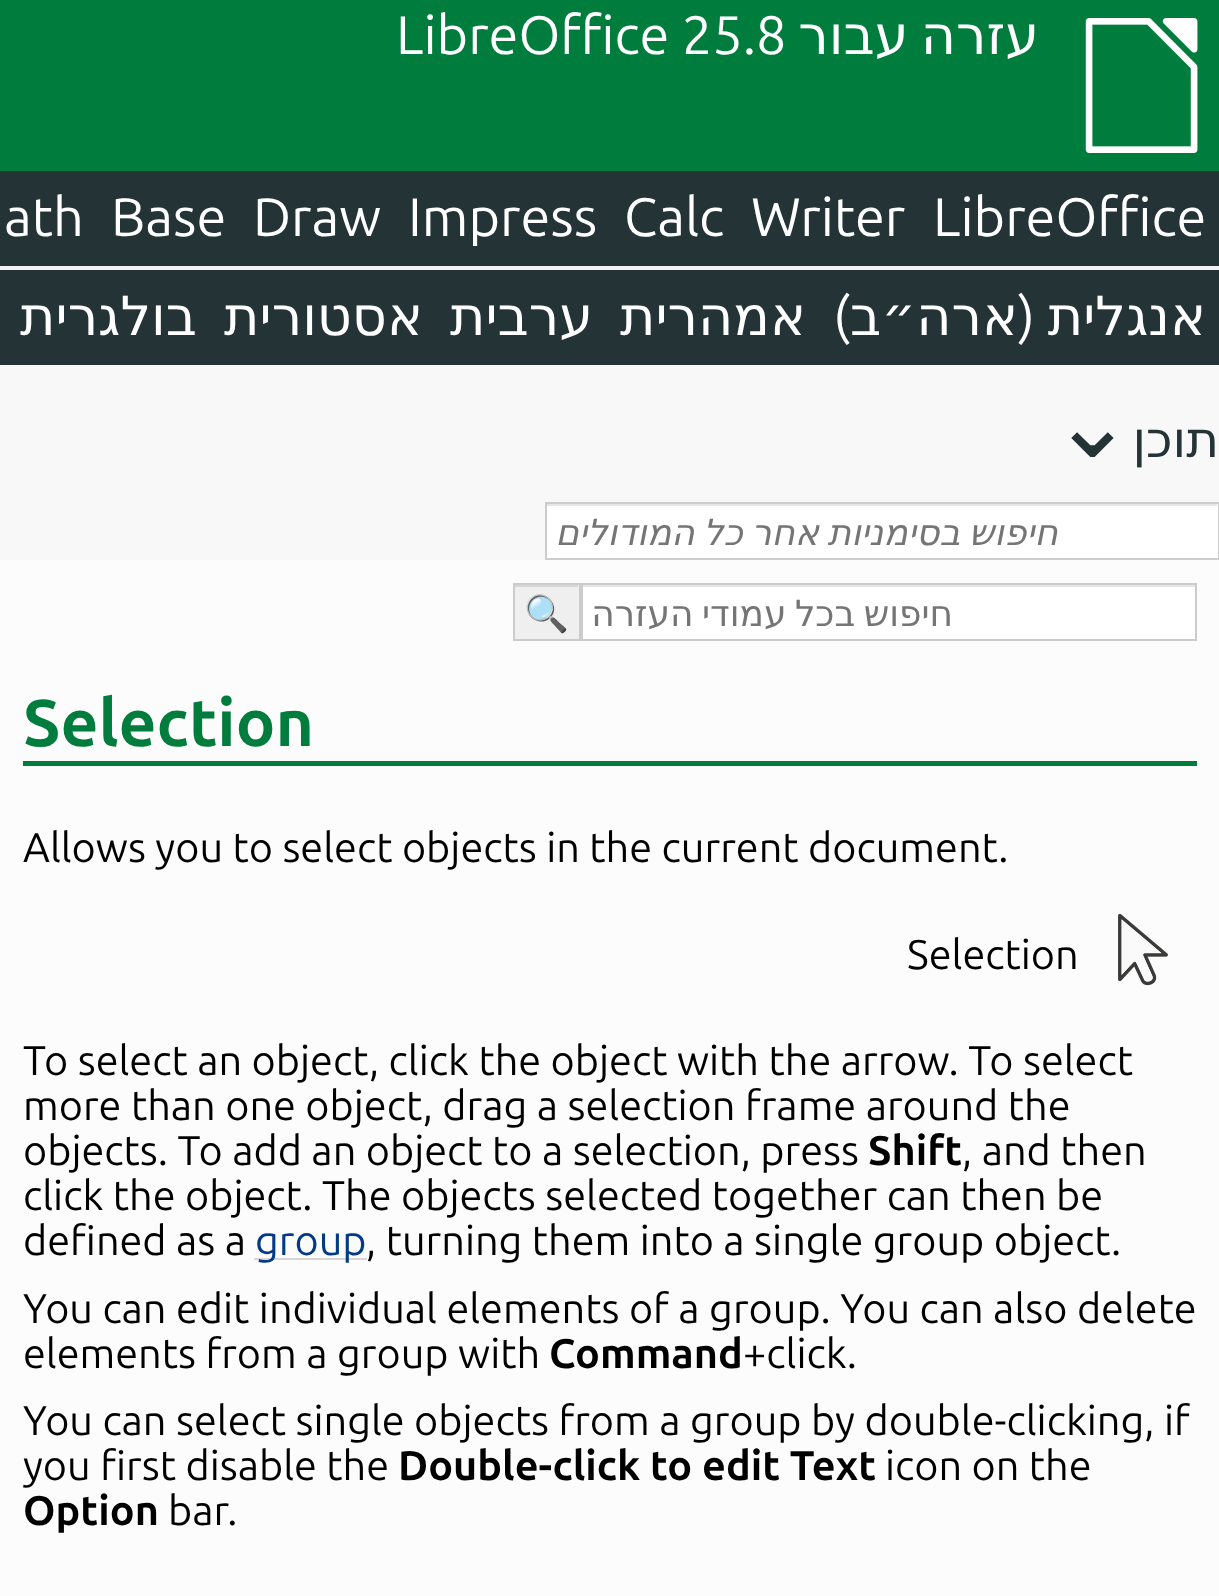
<!DOCTYPE html>
<meta charset="utf-8">
<style>body { margin: 0 } canvas { display: block }</style>
<canvas id="canvas" width="1219" height="1596"></canvas>
<img id="img1" src="img_01.png" hidden>
<img id="img2" src="img_02.png" hidden>
<script>
window.onload = function () {
	const canvas = document.getElementById("canvas");
	const ctx = canvas.getContext("2d");
	ctx.miterLimit = 4;
	ctx.fontKerning = "normal";
	function txt(s, x, y) {
		ctx.fillText(s, x, y);
	}
	function fill(x, y, w, h) {
		ctx.fillRect(x, y, w, h);
	}
	function img(id, x, y, w, h) {
		ctx.drawImage(document.getElementById(id), x, y, w, h);
	}

	ctx.fillStyle = "#F7F8F7";
	fill(0, 0, 1219, 1596);
	ctx.fillStyle = "#007C3C";
	fill(0, 0, 1219, 171);
	img("img1", 1085, 18, 113, 135);
	ctx.fillStyle = "#233336";
	fill(0, 171, 1219, 95);
	ctx.fillStyle = "#F3F3F3";
	fill(0, 266, 1219, 4);
	ctx.fillStyle = "#233336";
	fill(0, 270, 1219, 95);
	ctx.fillStyle = "#FFFFFF";
	fill(547, 504, 671, 54);
	ctx.fillStyle = "#E6E6E6";
	fill(547, 504, 670, 2);
	ctx.strokeStyle = "#CCCCCC";
	ctx.lineWidth = 2;
	ctx.strokeRect(546, 503, 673, 56);
	ctx.fillStyle = "#FCFCFC";
	fill(0, 560, 1219, 1036);
	ctx.fillStyle = "#EFEFEF";
	fill(515, 585, 64, 54);
	ctx.fillStyle = "#D7D7D7";
	fill(515, 585, 63, 2);
	ctx.strokeRect(514, 584, 66, 56);
	ctx.fillStyle = "#FFFFFF";
	fill(583, 587, 612, 52);
	ctx.fillStyle = "#E6E6E6";
	fill(583, 585, 612, 2);
	ctx.strokeRect(582, 584, 614, 56);
	ctx.fillStyle = "#007C3C";
	fill(23, 761, 1174, 5);
	img("img2", 1118, 913, 50, 73);
	ctx.fillStyle = "#D6D6D6";
	fill(254, 1258, 113, 2);
	ctx.font = "54px Ubuntu";
	ctx.fillStyle = "#FFFFFF";
	txt("LibreOffice 25.8", 396, 54);
	ctx.wordSpacing = "-5px";
	ctx.direction = "rtl";
	ctx.font = "54px DejaVu Sans";
	txt("עזרה עבור", 1039, 54);
	ctx.wordSpacing = "0px";
	ctx.direction = "ltr";
	ctx.font = "54px Ubuntu";
	txt("ath", 4, 236);
	txt("Base", 111, 236);
	txt("Draw", 253, 236);
	txt("Impress", 408, 236);
	txt("Calc", 624, 236);
	txt("Writer", 751, 236);
	txt("LibreOffice", 933, 236);
	ctx.direction = "rtl";
	ctx.font = "54px DejaVu Sans";
	txt("בולגרית", 197, 335);
	txt("אסטורית", 423, 335);
	txt("ערבית", 593, 335);
	txt("אמהרית", 806, 335);
	ctx.font = "54px Ubuntu";
	txt(")", 850, 335);
	ctx.font = "54px DejaVu Sans";
	txt("ארה״ב", 1018, 335);
	ctx.font = "54px Ubuntu";
	txt("(", 1035, 335);
	ctx.font = "54px DejaVu Sans";
	txt("אנגלית", 1206, 335);
	ctx.direction = "ltr";
	ctx.font = "99px DejaVu Sans";
	ctx.fillStyle = "#233336";
	txt("⌄", 1051, 457);
	ctx.direction = "rtl";
	ctx.font = "50px DejaVu Sans";
	txt("תוכן", 1219, 457);
	ctx.wordSpacing = "-3px";
	ctx.font = "italic 36px DejaVu Sans";
	ctx.fillStyle = "#757575";
	txt("חיפוש בסימניות אחר כל המודולים", 1058, 545);
	ctx.wordSpacing = "0px";
	ctx.direction = "ltr";
	ctx.font = "36px Noto Color Emoji";
	ctx.fillStyle = "#000000";
	txt("🔍", 524, 626);
	ctx.wordSpacing = "-3px";
	ctx.direction = "rtl";
	ctx.font = "36px DejaVu Sans";
	ctx.fillStyle = "#757575";
	txt("חיפוש בכל עמודי העזרה", 953, 626);
	ctx.wordSpacing = "0px";
	ctx.direction = "ltr";
	ctx.font = "bold 66px Ubuntu";
	ctx.fillStyle = "#007C3C";
	txt("Selection", 23, 746);
	ctx.font = "41.4px Ubuntu";
	ctx.fillStyle = "#000000";
	txt("Allows you to select objects in the current document.", 23, 862);
	txt("Selection", 907, 969);
	txt("To select an object, click the object with the arrow. To select", 23, 1075);
	txt("more than one object, drag a selection frame around the", 23, 1120);
	txt("objects. To add an object to a selection, press", 23, 1165);
	ctx.font = "bold 41.4px Ubuntu";
	txt("Shift", 868, 1165);
	ctx.font = "41.4px Ubuntu";
	txt(", and then", 962, 1165);
	txt("click the object. The objects selected together can then be", 23, 1210);
	txt("defined as a", 23, 1255);
	ctx.fillStyle = "#023A86";
	txt("group", 255, 1255);
	ctx.fillStyle = "#000000";
	txt(", turning them into a single group object.", 366, 1255);
	txt("You can edit individual elements of a group. You can also delete", 23, 1323);
	txt("elements from a group with", 23, 1368);
	ctx.font = "bold 41.4px Ubuntu";
	txt("Command", 549, 1368);
	ctx.font = "41.4px Ubuntu";
	txt("+click.", 743, 1368);
	txt("You can select single objects from a group by double-clicking, if", 23, 1435);
	txt("you first disable the", 23, 1480);
	ctx.font = "bold 41.4px Ubuntu";
	txt("Double-click to edit Text", 398, 1480);
	ctx.font = "41.4px Ubuntu";
	txt("icon on the", 885, 1480);
	ctx.font = "bold 41.4px Ubuntu";
	txt("Option", 23, 1525);
	ctx.font = "41.4px Ubuntu";
	txt("bar.", 168, 1525);
};
</script>
